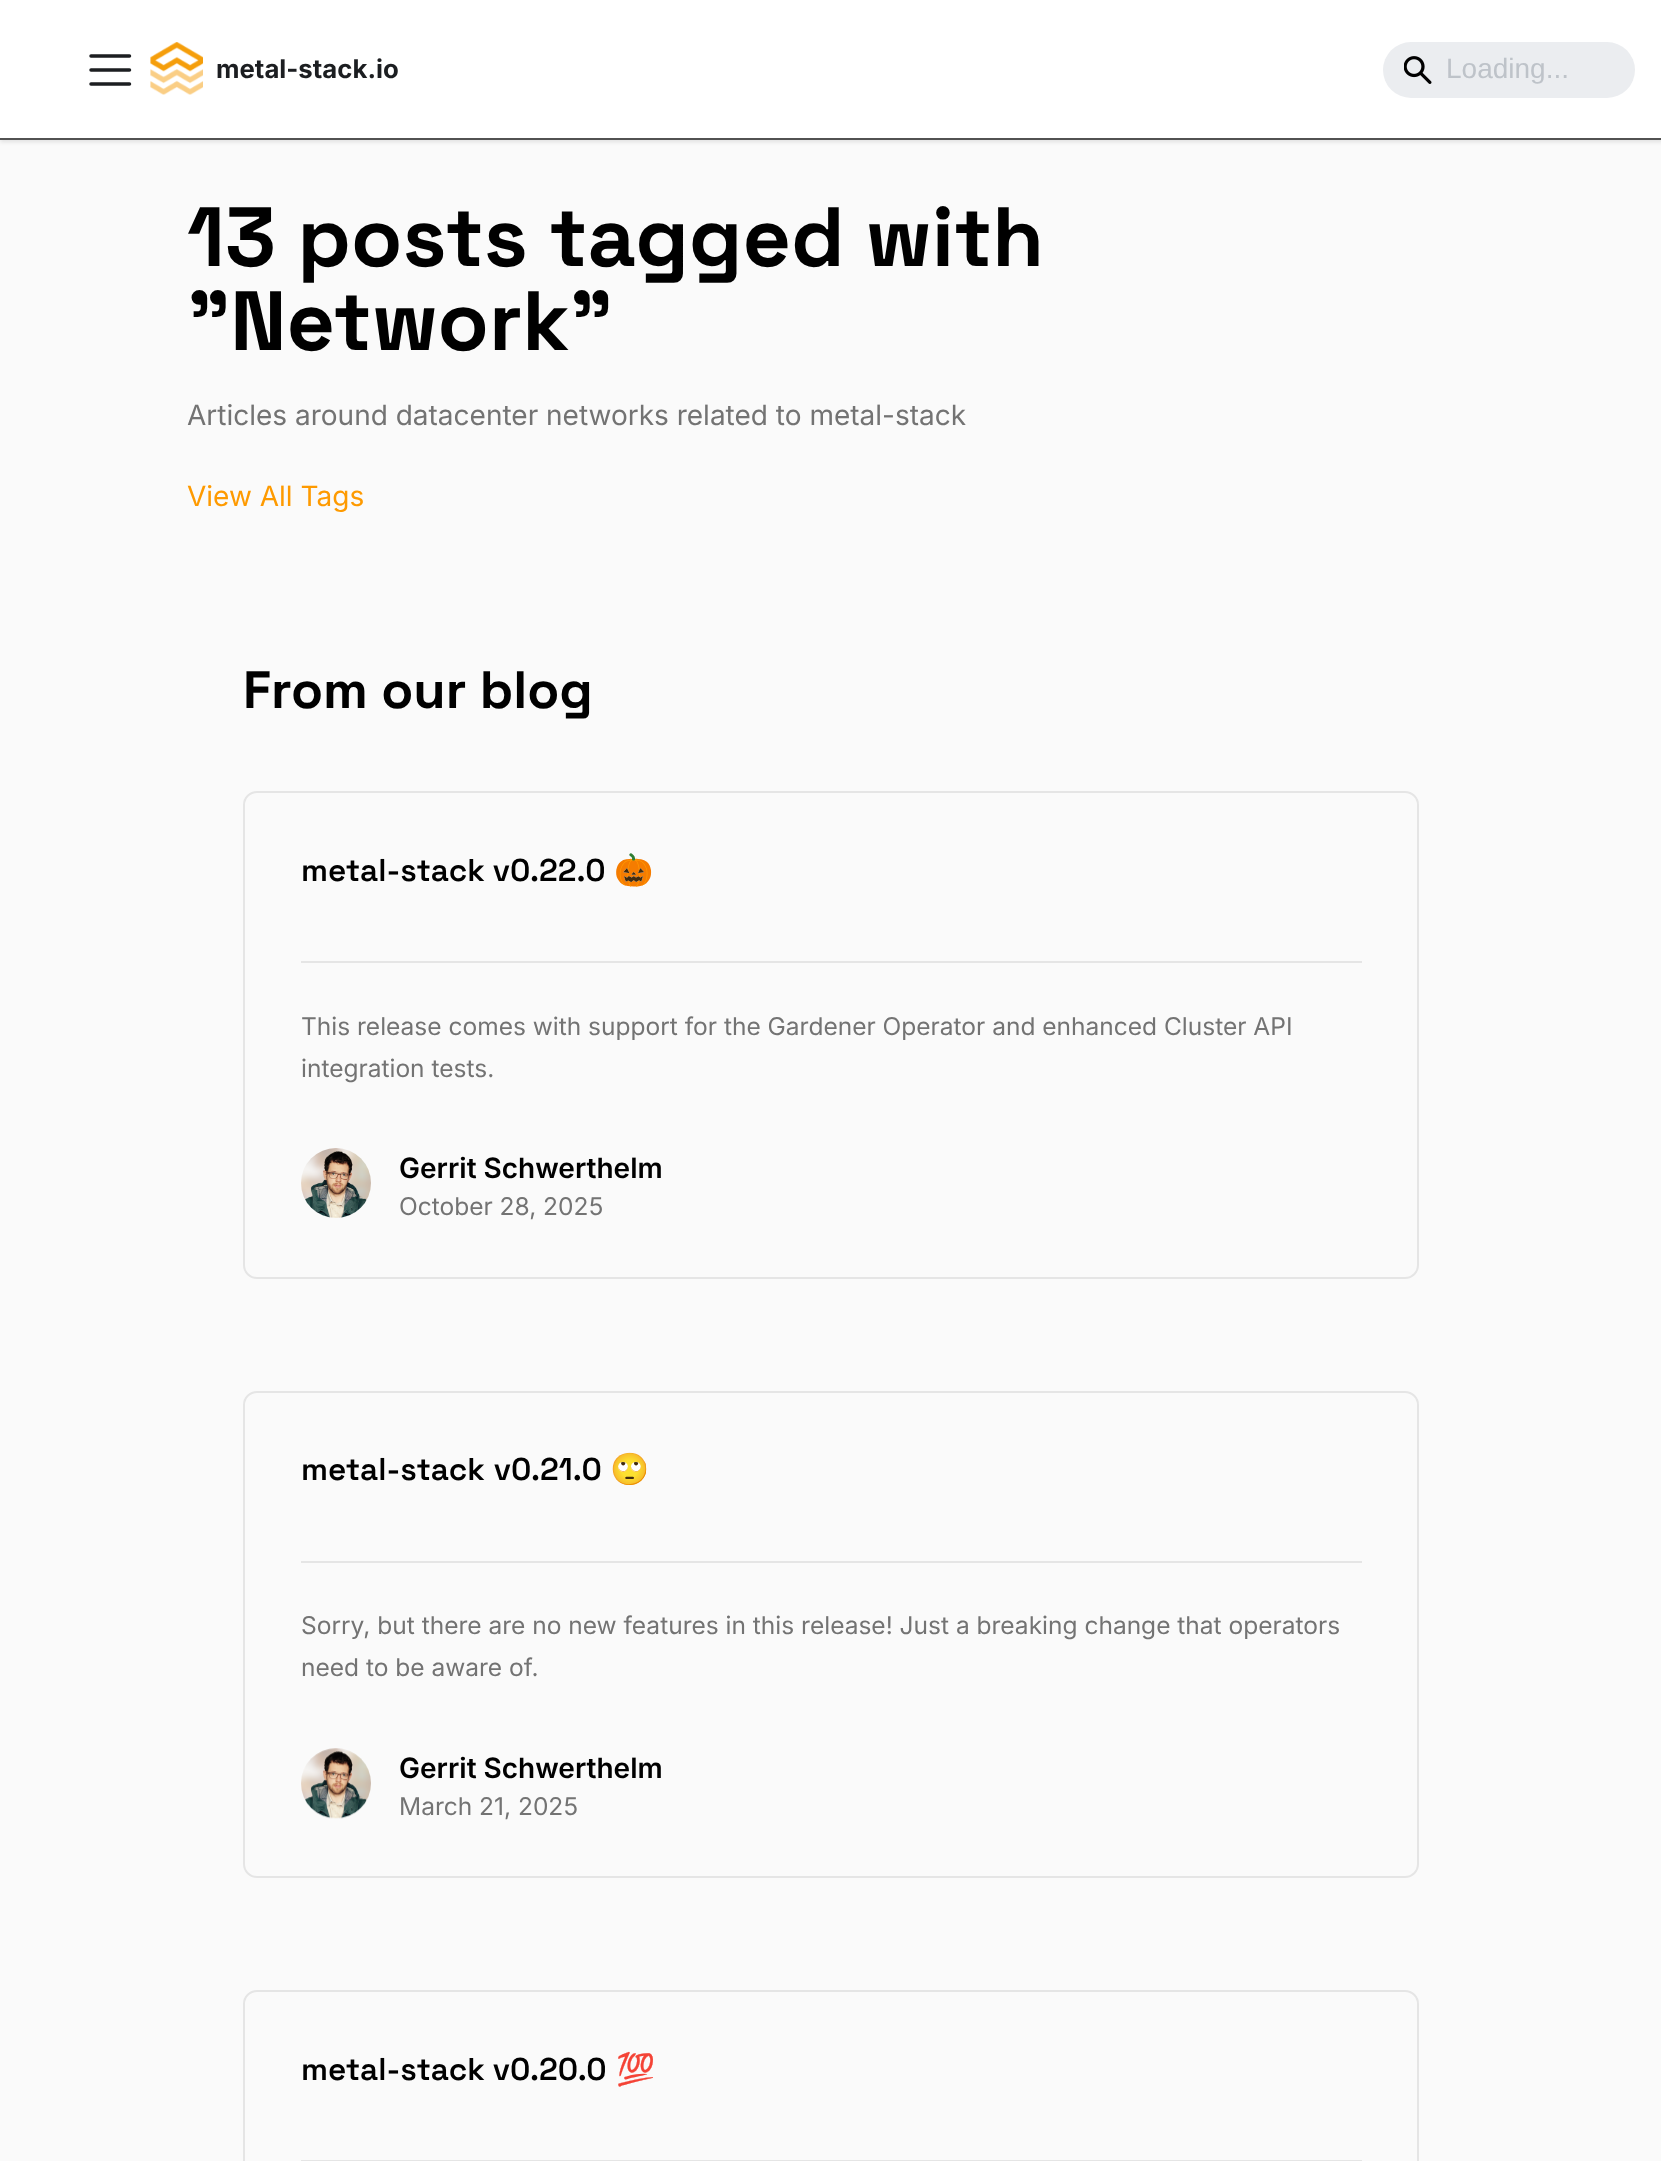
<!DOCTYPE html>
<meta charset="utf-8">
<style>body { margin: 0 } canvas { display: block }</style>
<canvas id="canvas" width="1661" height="2161"></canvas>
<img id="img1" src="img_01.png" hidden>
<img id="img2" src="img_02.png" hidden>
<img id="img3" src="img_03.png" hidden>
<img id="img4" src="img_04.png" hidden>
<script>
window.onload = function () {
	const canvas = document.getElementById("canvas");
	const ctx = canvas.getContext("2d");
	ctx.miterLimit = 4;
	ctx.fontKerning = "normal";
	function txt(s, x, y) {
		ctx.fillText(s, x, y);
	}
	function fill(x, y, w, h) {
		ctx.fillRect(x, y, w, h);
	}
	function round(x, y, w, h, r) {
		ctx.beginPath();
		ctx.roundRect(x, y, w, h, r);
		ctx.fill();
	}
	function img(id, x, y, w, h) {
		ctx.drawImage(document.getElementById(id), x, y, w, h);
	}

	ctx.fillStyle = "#FAFAFA";
	fill(0, 0, 1661, 2161);
	ctx.fillStyle = "rgba(0, 0, 0, 0.1)";
	ctx.filter = "blur(2px)";
	ctx.beginPath();
	ctx.rect(0, 2, 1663, 140);
	ctx.fill();
	ctx.filter = "none";
	ctx.fillStyle = "#FFFFFF";
	fill(0, 0, 1661, 138);
	ctx.fillStyle = "#525252";
	fill(0, 138, 1661, 2);
	ctx.beginPath();
	ctx.moveTo(91, 56);
	ctx.lineTo(129.5, 56);
	ctx.moveTo(91, 70);
	ctx.lineTo(129.5, 70);
	ctx.moveTo(91, 84);
	ctx.lineTo(129.5, 84);
	ctx.strokeStyle = "#1C1E21";
	ctx.lineWidth = 3.5;
	ctx.lineCap = "round";
	ctx.stroke();
	img("img1", 150, 42, 53, 53);
	ctx.fillStyle = "#EBEDF0";
	round(1383, 42, 252, 56, 28);
	img("img2", 1404, 56, 28, 28);
	ctx.beginPath();
	ctx.roundRect(244, 792, 1174, 486, 13);
	ctx.strokeStyle = "#E5E5E5";
	ctx.lineWidth = 2;
	ctx.stroke();
	ctx.fillStyle = "#E5E5E5";
	fill(301, 961, 1061, 2);
	img("img3", 301, 1148, 70, 70);
	ctx.beginPath();
	ctx.roundRect(244, 1392, 1174, 485, 13);
	ctx.stroke();
	fill(301, 1561, 1061, 2);
	img("img4", 301, 1748, 70, 71);
	ctx.beginPath();
	ctx.roundRect(244, 1991, 1174, 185, 13);
	ctx.stroke();
	fill(301, 2160, 1061, 1);
	ctx.font = "bold 25.75px Inter";
	ctx.fillStyle = "#1C1E21";
	txt("metal-stack.io", 216, 78);
	ctx.font = "28px Liberation Sans";
	ctx.fillStyle = "#BEC3C9";
	txt("Loading...", 1446, 78);
	ctx.font = "bold 84px Space Grotesk";
	ctx.fillStyle = "#000000";
	txt("13 posts tagged with", 187, 266);
	txt("\"Network\"", 187, 350);
	ctx.font = "28px Inter";
	ctx.fillStyle = "#737373";
	txt("Articles around datacenter networks related to metal-stack", 187, 425);
	ctx.fillStyle = "#FE9A00";
	txt("View All Tags", 187, 506);
	ctx.font = "bold 52.5px Space Grotesk";
	ctx.fillStyle = "#000000";
	txt("From our blog", 243, 708);
	ctx.font = "600 31.5px Space Grotesk";
	txt("metal-stack v0.22.0", 301, 881);
	ctx.font = "bold 31.5px Noto Color Emoji";
	txt("🎃", 614, 881);
	ctx.font = "24.5px Inter";
	ctx.fillStyle = "#737373";
	txt("This release comes with support for the Gardener Operator and enhanced Cluster API", 301, 1035);
	txt("integration tests.", 301, 1077);
	ctx.font = "600 28px Inter";
	ctx.fillStyle = "#000000";
	txt("Gerrit Schwerthelm", 399, 1178);
	ctx.font = "24.5px Inter";
	ctx.fillStyle = "#737373";
	txt("October 28, 2025", 399, 1215);
	ctx.wordSpacing = "1px";
	ctx.font = "600 31.5px Space Grotesk";
	ctx.fillStyle = "#000000";
	txt("metal-stack v0.21.0", 301, 1480);
	ctx.wordSpacing = "0px";
	ctx.font = "bold 31.5px Noto Color Emoji";
	txt("🙄", 610, 1480);
	ctx.font = "24.5px Inter";
	ctx.fillStyle = "#737373";
	txt("Sorry, but there are no new features in this release! Just a breaking change that operators", 301, 1634);
	txt("need to be aware of.", 301, 1676);
	ctx.font = "600 28px Inter";
	ctx.fillStyle = "#000000";
	txt("Gerrit Schwerthelm", 399, 1778);
	ctx.font = "24.5px Inter";
	ctx.fillStyle = "#737373";
	txt("March 21, 2025", 399, 1815);
	ctx.font = "600 31.5px Space Grotesk";
	ctx.fillStyle = "#000000";
	txt("metal-stack v0.20.0", 301, 2080);
	ctx.font = "bold 31.5px Noto Color Emoji";
	txt("💯", 616, 2080);
};
</script>
